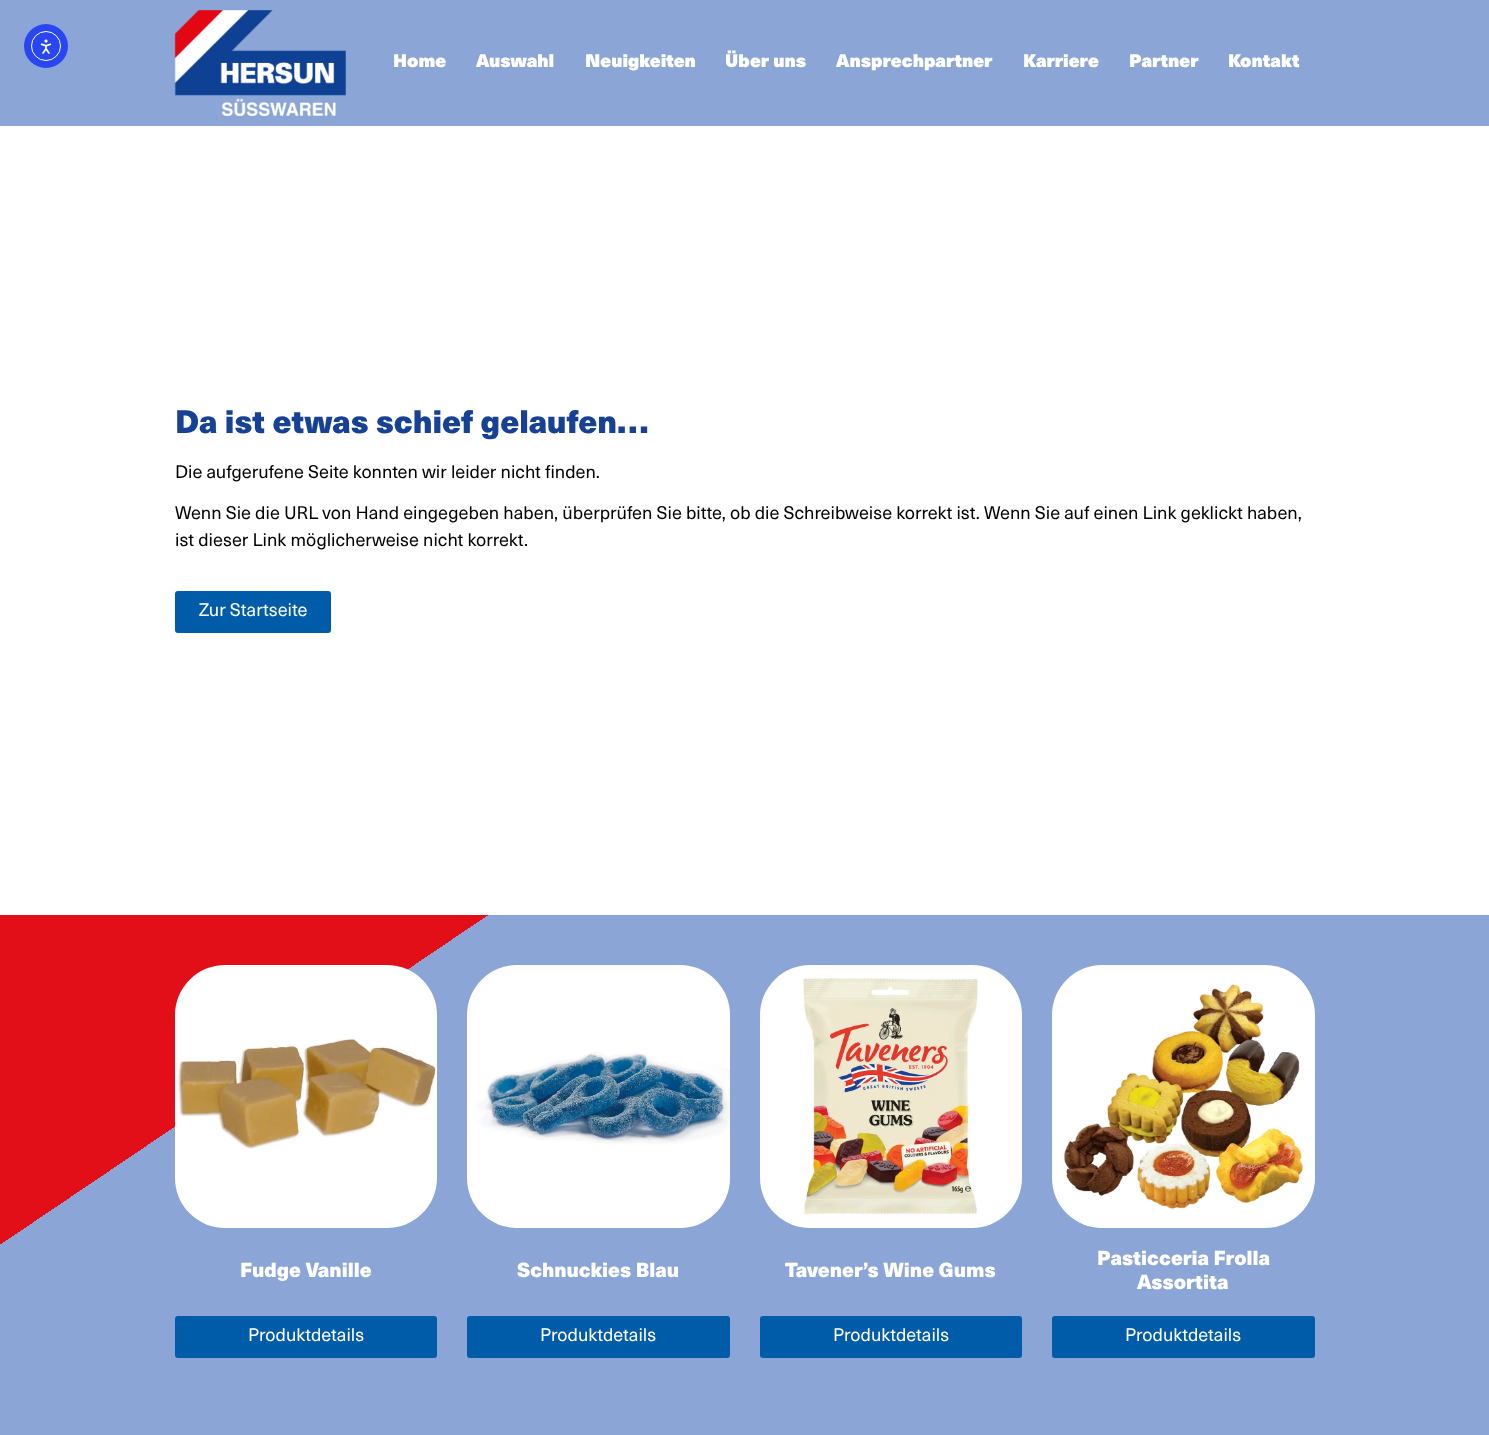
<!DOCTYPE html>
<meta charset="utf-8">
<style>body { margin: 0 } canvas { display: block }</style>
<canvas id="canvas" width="1489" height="1435"></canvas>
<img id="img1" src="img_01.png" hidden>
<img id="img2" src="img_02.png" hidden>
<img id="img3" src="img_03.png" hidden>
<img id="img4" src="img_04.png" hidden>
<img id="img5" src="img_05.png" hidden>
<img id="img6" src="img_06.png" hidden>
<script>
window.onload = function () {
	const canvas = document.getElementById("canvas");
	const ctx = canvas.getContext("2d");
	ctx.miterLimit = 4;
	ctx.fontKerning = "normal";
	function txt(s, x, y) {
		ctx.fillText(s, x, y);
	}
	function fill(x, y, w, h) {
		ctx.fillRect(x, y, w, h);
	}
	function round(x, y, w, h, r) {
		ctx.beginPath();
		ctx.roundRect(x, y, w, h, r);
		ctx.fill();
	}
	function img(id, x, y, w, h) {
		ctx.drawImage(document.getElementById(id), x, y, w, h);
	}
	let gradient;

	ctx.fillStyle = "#FFFFFF";
	fill(0, 0, 1489, 1435);
	ctx.fillStyle = "#8AA5D6";
	fill(0, 0, 1489, 126);
	ctx.fillStyle = "#2847F3";
	ctx.beginPath();
	ctx.arc(46, 46, 22, 0, Math.PI * 2);
	ctx.fill();
	ctx.beginPath();
	ctx.arc(46, 46, 14.5, 0, Math.PI * 2);
	ctx.strokeStyle = "#FFFFFF";
	ctx.stroke();
	img("img1", 40, 39, 12, 15);
	img("img2", 174, 10, 172, 106);
	ctx.fillStyle = "#005CA9";
	round(175, 591, 156, 42, 3);
	gradient = ctx.createLinearGradient(1092, 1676, 397, 647);
	gradient.addColorStop(0.78, "#8AA5D6");
	gradient.addColorStop(0.78, "#E20E18");
	ctx.fillStyle = gradient;
	fill(0, 915, 1489, 493);
	img("img3", 175, 965, 262, 263);
	ctx.fillStyle = "#005CA9";
	round(175, 1316, 262, 42, 3);
	img("img4", 467, 965, 263, 263);
	round(467, 1316, 263, 42, 3);
	img("img5", 760, 965, 262, 263);
	round(760, 1316, 262, 42, 3);
	img("img6", 1052, 965, 263, 263);
	round(1052, 1316, 263, 42, 3);
	ctx.fillStyle = "#8AA5D6";
	fill(0, 1408, 1489, 27);
	ctx.font = "800 18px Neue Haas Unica";
	ctx.fillStyle = "#FFFFFF";
	txt("Home", 393, 67);
	txt("Auswahl", 476, 67);
	txt("Neuigkeiten", 585, 67);
	txt("Über uns", 725, 67);
	txt("Ansprechpartner", 836, 67);
	txt("Karriere", 1023, 67);
	txt("Partner", 1129, 67);
	txt("Kontakt", 1228, 67);
	ctx.font = "900 32px Neue Haas Unica";
	ctx.fillStyle = "#164194";
	txt("Da ist etwas schief gelaufen…", 175, 433);
	ctx.font = "18px Neue Haas Unica";
	ctx.fillStyle = "#000000";
	txt("Die aufgerufene Seite konnten wir leider nicht finden.", 175, 478);
	txt("Wenn Sie die URL von Hand eingegeben haben, überprüfen Sie bitte, ob die Schreibweise korrekt ist. Wenn Sie auf einen Link geklickt haben,", 175, 519);
	txt("ist dieser Link möglicherweise nicht korrekt.", 175, 546);
	ctx.fillStyle = "#FFFFFF";
	txt("Zur Startseite", 199, 616);
	ctx.font = "900 20px Neue Haas Unica";
	txt("Fudge Vanille", 240, 1277);
	ctx.font = "18px Neue Haas Unica";
	txt("Produktdetails", 248, 1341);
	ctx.font = "900 20px Neue Haas Unica";
	txt("Schnuckies Blau", 517, 1277);
	ctx.font = "18px Neue Haas Unica";
	txt("Produktdetails", 540, 1341);
	ctx.font = "900 20px Neue Haas Unica";
	txt("Tavener’s Wine Gums", 785, 1277);
	ctx.font = "18px Neue Haas Unica";
	txt("Produktdetails", 833, 1341);
	ctx.font = "900 20px Neue Haas Unica";
	txt("Pasticceria Frolla", 1097, 1265);
	txt("Assortita", 1137, 1289);
	ctx.font = "18px Neue Haas Unica";
	txt("Produktdetails", 1125, 1341);
};
</script>
